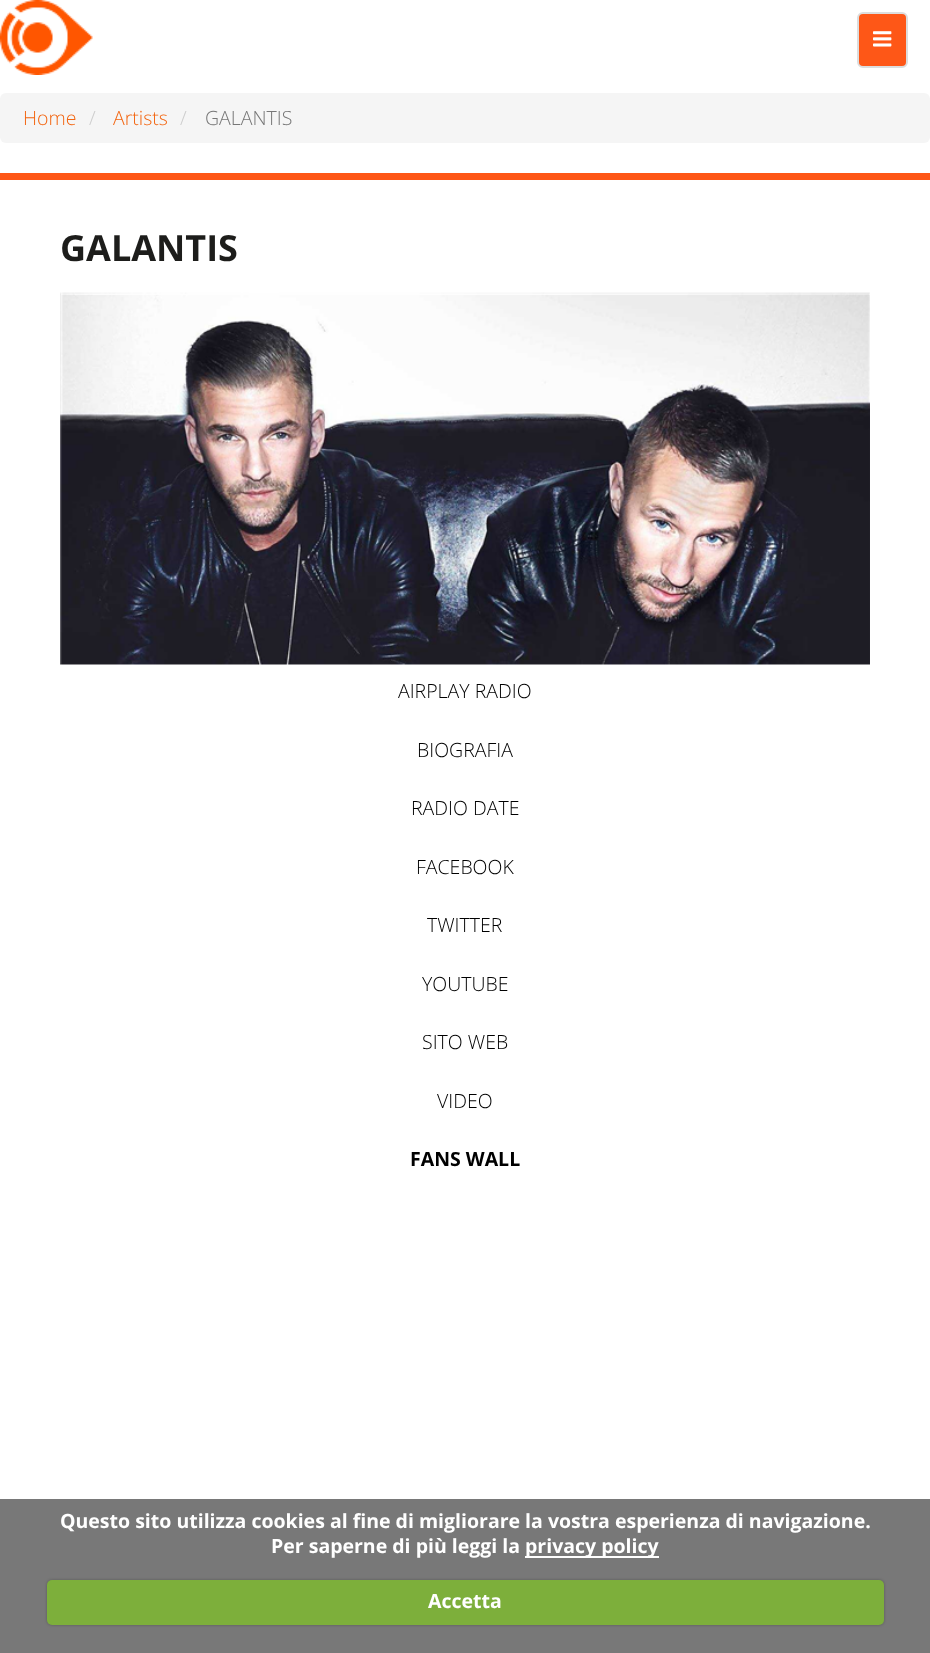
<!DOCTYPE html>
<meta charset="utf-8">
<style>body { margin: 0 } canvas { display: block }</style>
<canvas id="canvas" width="930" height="1653"></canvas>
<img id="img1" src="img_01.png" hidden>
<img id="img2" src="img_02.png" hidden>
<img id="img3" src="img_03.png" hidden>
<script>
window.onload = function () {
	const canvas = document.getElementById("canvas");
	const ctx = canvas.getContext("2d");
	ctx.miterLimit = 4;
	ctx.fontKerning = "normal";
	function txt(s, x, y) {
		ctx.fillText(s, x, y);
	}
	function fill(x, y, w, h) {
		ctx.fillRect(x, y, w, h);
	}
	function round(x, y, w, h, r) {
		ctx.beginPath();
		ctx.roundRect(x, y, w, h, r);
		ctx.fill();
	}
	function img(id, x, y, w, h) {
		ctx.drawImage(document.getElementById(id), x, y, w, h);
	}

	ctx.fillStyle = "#FFFFFF";
	fill(0, 0, 930, 1653);
	img("img1", 0, 0, 93, 75);
	ctx.fillStyle = "#FE5717";
	ctx.beginPath();
	ctx.roundRect(858, 13, 49, 54, 5);
	ctx.fill();
	ctx.strokeStyle = "#DDDDDD";
	ctx.lineWidth = 2;
	ctx.stroke();
	img("img2", 873, 31, 19, 16);
	fill(0, 173, 930, 7);
	ctx.fillStyle = "#F5F5F5";
	round(0, 93, 930, 50, 6);
	img("img3", 60, 292, 810, 373);
	ctx.fillStyle = "#787878";
	fill(0, 1499, 930, 154);
	ctx.fillStyle = "#FFFFFF";
	fill(525, 1556, 134, 2);
	ctx.fillStyle = "rgba(0, 0, 0, 0.25)";
	ctx.filter = "blur(1.5px)";
	ctx.beginPath();
	ctx.roundRect(47, 1580, 837, 45, 5);
	ctx.fill();
	ctx.filter = "none";
	ctx.fillStyle = "#7DAF3B";
	round(47, 1580, 837, 45, 5);
	ctx.font = "300 19.5px Open Sans";
	ctx.fillStyle = "#F36510";
	txt("Home", 23, 125);
	ctx.fillStyle = "#CCCCCC";
	txt("/", 89, 125);
	ctx.fillStyle = "#F36510";
	txt("Artists", 113, 125);
	ctx.fillStyle = "#CCCCCC";
	txt("/", 180, 125);
	ctx.fillStyle = "#777777";
	txt("GALANTIS", 205, 125);
	ctx.font = "bold 36px Open Sans";
	ctx.fillStyle = "#1D1D1B";
	txt("GALANTIS", 60, 261);
	ctx.font = "300 19.5px Open Sans";
	ctx.fillStyle = "#000000";
	txt("AIRPLAY RADIO", 398, 698);
	txt("BIOGRAFIA", 417, 757);
	txt("RADIO DATE", 411, 815);
	txt("FACEBOOK", 416, 874);
	txt("TWITTER", 427, 932);
	txt("YOUTUBE", 422, 991);
	txt("SITO WEB", 422, 1049);
	txt("VIDEO", 437, 1108);
	ctx.font = "bold 19.5px Open Sans";
	txt("FANS WALL", 410, 1166);
	ctx.fillStyle = "#FFFFFF";
	txt("Questo sito utilizza cookies al fine di migliorare la vostra esperienza di navigazione.", 60, 1528);
	txt("Per saperne di più leggi la", 271, 1553);
	txt("privacy policy", 525, 1553);
	txt("Accetta", 428, 1608);
};
</script>
